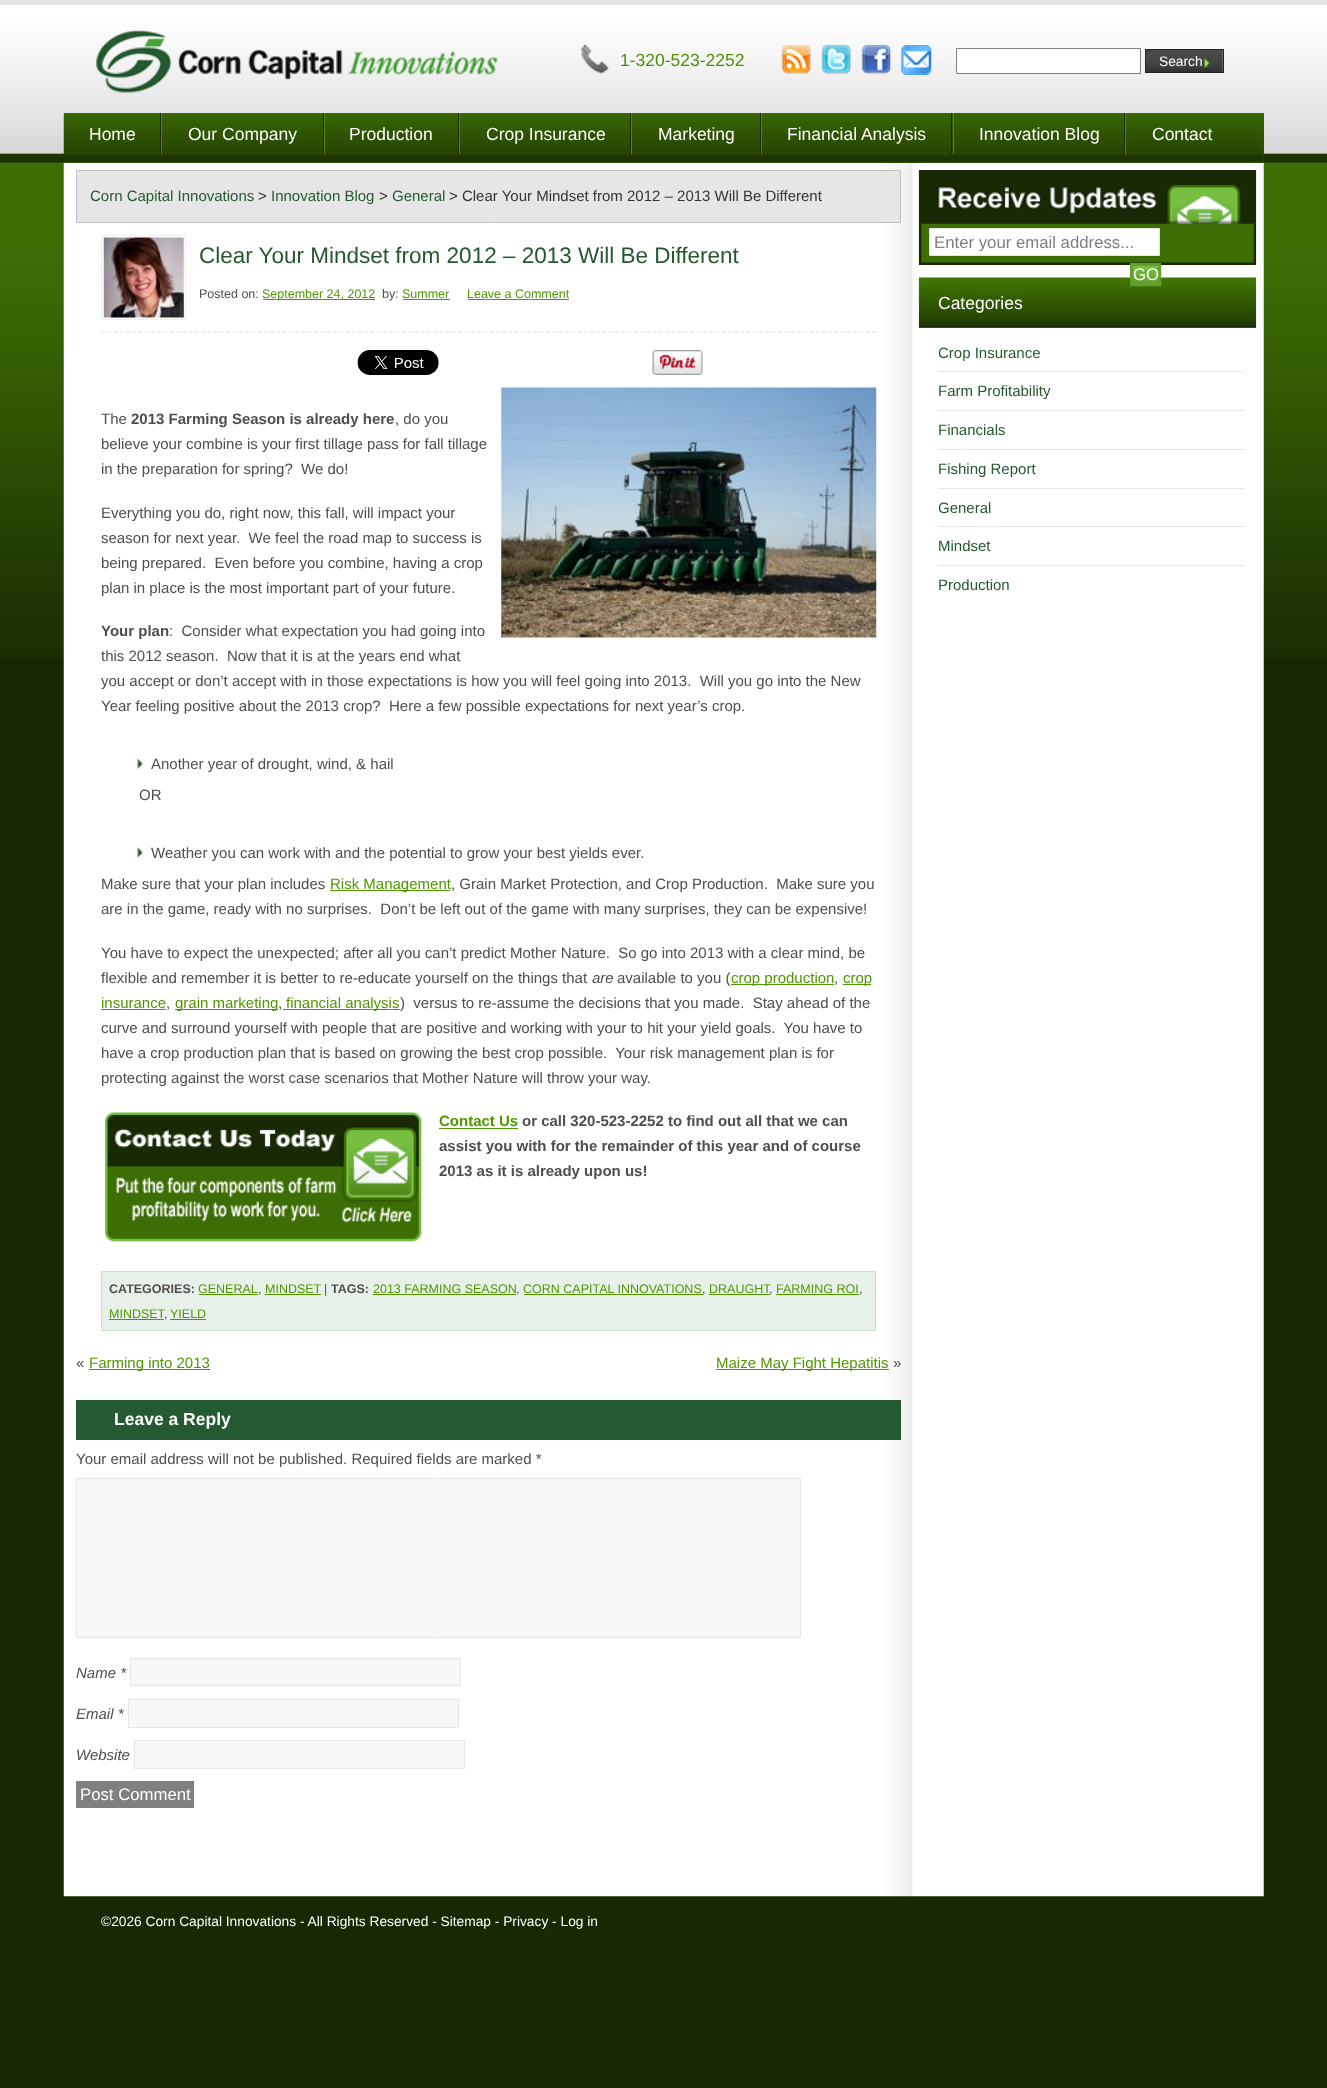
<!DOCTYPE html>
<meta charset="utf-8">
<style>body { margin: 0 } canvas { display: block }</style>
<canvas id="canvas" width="1327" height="2088"></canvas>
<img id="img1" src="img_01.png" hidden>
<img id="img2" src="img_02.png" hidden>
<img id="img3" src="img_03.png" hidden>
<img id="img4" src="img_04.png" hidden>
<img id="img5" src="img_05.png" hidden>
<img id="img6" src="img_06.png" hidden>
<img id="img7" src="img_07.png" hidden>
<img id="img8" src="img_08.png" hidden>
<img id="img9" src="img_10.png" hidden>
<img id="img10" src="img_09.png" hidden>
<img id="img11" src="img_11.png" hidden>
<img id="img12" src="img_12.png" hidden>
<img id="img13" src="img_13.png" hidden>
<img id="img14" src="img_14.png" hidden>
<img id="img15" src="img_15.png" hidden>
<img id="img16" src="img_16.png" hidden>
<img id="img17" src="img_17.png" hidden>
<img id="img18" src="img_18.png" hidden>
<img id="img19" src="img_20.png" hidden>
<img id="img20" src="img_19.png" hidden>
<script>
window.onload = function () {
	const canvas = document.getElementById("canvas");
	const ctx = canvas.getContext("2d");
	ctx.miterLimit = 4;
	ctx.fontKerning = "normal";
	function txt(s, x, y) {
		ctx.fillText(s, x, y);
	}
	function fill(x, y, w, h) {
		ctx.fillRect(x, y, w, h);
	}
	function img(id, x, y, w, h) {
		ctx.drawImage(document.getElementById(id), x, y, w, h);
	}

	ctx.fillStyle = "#172903";
	fill(0, 0, 1327, 2088);
	img("img1", 0, 0, 1327, 659);
	img("img2", 95, 30, 403, 63);
	img("img3", 581, 44, 28, 30);
	img("img4", 781, 45, 31, 29);
	img("img5", 821, 45, 31, 29);
	img("img6", 861, 45, 31, 29);
	img("img7", 901, 45, 31, 30);
	ctx.fillStyle = "#FFFFFF";
	ctx.beginPath();
	ctx.rect(956.5, 48.5, 184, 25);
	ctx.fill();
	ctx.strokeStyle = "#808080";
	ctx.stroke();
	ctx.fillStyle = "#808080";
	fill(1222, 50, 1, 22);
	img("img8", 1146, 50, 77, 22);
	ctx.strokeStyle = "#242424";
	ctx.strokeRect(1145.5, 49.5, 78, 23);
	img("img9", 63, 162, 1201, 1735);
	ctx.fillStyle = "#396704";
	fill(64, 113, 1200, 50);
	img("img10", 63, 113, 1201, 50);
	ctx.fillStyle = "#508E05";
	fill(161, 113, 1, 41);
	ctx.fillStyle = "#182803";
	fill(160, 113, 1, 41);
	ctx.fillStyle = "#508E05";
	fill(324, 113, 1, 41);
	ctx.fillStyle = "#182803";
	fill(323, 113, 1, 41);
	ctx.fillStyle = "#508E05";
	fill(459, 113, 1, 41);
	ctx.fillStyle = "#182803";
	fill(458, 113, 1, 41);
	ctx.fillStyle = "#508E05";
	fill(631, 113, 1, 41);
	ctx.fillStyle = "#182803";
	fill(630, 113, 1, 41);
	ctx.fillStyle = "#508E05";
	fill(761, 113, 1, 41);
	ctx.fillStyle = "#182803";
	fill(760, 113, 1, 41);
	ctx.fillStyle = "#508E05";
	fill(953, 113, 1, 41);
	ctx.fillStyle = "#182803";
	fill(951, 113, 1, 41);
	ctx.fillStyle = "#508E05";
	fill(1125, 113, 1, 41);
	ctx.fillStyle = "#182803";
	fill(1124, 113, 1, 41);
	ctx.fillStyle = "#E6E6E6";
	ctx.beginPath();
	ctx.rect(76.5, 170.5, 824, 52);
	ctx.fill();
	ctx.strokeStyle = "#C0C0C0";
	ctx.stroke();
	ctx.strokeStyle = "#EBEEF3";
	ctx.strokeRect(101.5, 235.5, 84, 84);
	img("img11", 103, 237, 81, 81);
	ctx.beginPath();
	ctx.moveTo(101, 332);
	ctx.lineTo(876, 332);
	ctx.strokeStyle = "#D5E9D4";
	ctx.lineWidth = 1.2;
	ctx.setLineDash([3.75, 2.52]);
	ctx.stroke();
	ctx.fillStyle = "#519701";
	fill(263, 299, 112, 1);
	fill(403, 299, 47, 1);
	fill(468, 299, 101, 1);
	img("img12", 357, 350, 82, 25);
	img("img13", 652, 350, 51, 25);
	img("img14", 501, 387, 376, 251);
	img("img15", 137, 758, 6, 11);
	img("img16", 137, 847, 6, 11);
	fill(330, 890, 120, 1);
	fill(731, 984, 103, 1);
	fill(843, 984, 28, 1);
	fill(101, 1009, 65, 1);
	fill(175, 1009, 103, 1);
	fill(283, 1009, 117, 1);
	img("img17", 104, 1112, 318, 130);
	fill(439, 1128, 79, 1);
	ctx.fillStyle = "#E8F1E9";
	ctx.beginPath();
	ctx.rect(101.5, 1271.5, 774, 59);
	ctx.fill();
	ctx.strokeStyle = "#CDDDCE";
	ctx.lineWidth = 1;
	ctx.setLineDash([]);
	ctx.stroke();
	ctx.fillStyle = "#519701";
	fill(199, 1294, 59, 1);
	fill(265, 1294, 56, 1);
	fill(373, 1294, 143, 1);
	fill(524, 1294, 179, 1);
	fill(709, 1294, 61, 1);
	fill(776, 1294, 83, 1);
	fill(109, 1319, 55, 1);
	fill(170, 1319, 36, 1);
	fill(89, 1369, 121, 1);
	fill(716, 1369, 173, 1);
	ctx.fillStyle = "#255932";
	fill(76, 1400, 825, 40);
	ctx.fillStyle = "#F7F7F7";
	ctx.beginPath();
	ctx.rect(76.5, 1478.5, 724, 159);
	ctx.fill();
	ctx.strokeStyle = "#E5E5E5";
	ctx.stroke();
	ctx.beginPath();
	ctx.rect(130.5, 1658.5, 330, 27);
	ctx.fill();
	ctx.stroke();
	ctx.beginPath();
	ctx.rect(128.5, 1699.5, 330, 28);
	ctx.fill();
	ctx.stroke();
	ctx.beginPath();
	ctx.rect(134.5, 1740.5, 330, 28);
	ctx.fill();
	ctx.stroke();
	ctx.fillStyle = "#808080";
	fill(76, 1781, 118, 27);
	img("img18", 918, 170, 339, 95);
	ctx.fillStyle = "#FFFFFF";
	ctx.beginPath();
	ctx.rect(929.5, 228.5, 230, 27);
	ctx.fill();
	ctx.stroke();
	ctx.fillStyle = "#417A05";
	fill(919, 327, 337, 1);
	img("img19", 918, 277, 339, 51);
	img("img20", 1130, 265, 32, 22);
	ctx.strokeStyle = "#61A12B";
	ctx.lineWidth = 3;
	ctx.strokeRect(1131.5, 264.5, 28, 20);
	ctx.fillStyle = "#E5E5E5";
	fill(938, 371, 306, 1);
	fill(938, 410, 306, 1);
	fill(938, 449, 306, 1);
	fill(938, 488, 306, 1);
	fill(938, 526, 306, 1);
	fill(938, 565, 306, 1);
	ctx.font = "17.5px Liberation Sans";
	ctx.fillStyle = "#508F03";
	txt("1-320-523-2252", 620, 66);
	ctx.font = "13.75px Liberation Sans";
	ctx.fillStyle = "#FFFFFF";
	txt("Search", 1159, 66);
	ctx.font = "17.5px Liberation Sans";
	txt("Home", 89, 140);
	txt("Our Company", 188, 140);
	txt("Production", 349, 140);
	txt("Crop Insurance", 486, 140);
	txt("Marketing", 658, 140);
	txt("Financial Analysis", 787, 140);
	txt("Innovation Blog", 979, 140);
	txt("Contact", 1152, 140);
	ctx.font = "15px Liberation Sans";
	ctx.fillStyle = "#24592F";
	txt("Corn Capital Innovations", 90, 201);
	ctx.fillStyle = "#333333";
	txt(">", 258, 201);
	ctx.fillStyle = "#24592F";
	txt("Innovation Blog", 271, 201);
	ctx.fillStyle = "#333333";
	txt(">", 379, 201);
	ctx.fillStyle = "#24592F";
	txt("General", 392, 201);
	ctx.fillStyle = "#333333";
	txt("> Clear Your Mindset from 2012 – 2013 Will Be Different", 449, 201);
	ctx.font = "22.5px Liberation Sans";
	ctx.fillStyle = "#24592F";
	txt("Clear Your Mindset from 2012 – 2013 Will Be Different", 199, 263);
	ctx.font = "12.5px Liberation Sans";
	ctx.fillStyle = "#4E4E4E";
	txt("Posted on:", 199, 298);
	ctx.fillStyle = "#519701";
	txt("September 24, 2012", 262, 298);
	ctx.fillStyle = "#4E4E4E";
	txt("by:", 382, 298);
	ctx.fillStyle = "#519701";
	txt("Summer", 402, 298);
	txt("Leave a Comment", 467, 298);
	ctx.font = "15px Liberation Sans";
	ctx.fillStyle = "#4E4E4E";
	txt("The", 101, 424);
	ctx.font = "bold 15px Liberation Sans";
	txt("2013 Farming Season is already here", 131, 424);
	ctx.font = "15px Liberation Sans";
	txt(", do you", 395, 424);
	txt("believe your combine is your first tillage pass for fall tillage", 101, 449);
	txt("in the preparation for spring?  We do!", 101, 474);
	txt("Everything you do, right now, this fall, will impact your", 101, 518);
	txt("season for next year.  We feel the road map to success is", 101, 543);
	txt("being prepared.  Even before you combine, having a crop", 101, 568);
	txt("plan in place is the most important part of your future.", 101, 593);
	ctx.font = "bold 15px Liberation Sans";
	txt("Your plan", 101, 636);
	ctx.font = "15px Liberation Sans";
	txt(":  Consider what expectation you had going into", 169, 636);
	txt("this 2012 season.  Now that it is at the years end what", 101, 661);
	txt("you accept or don’t accept with in those expectations is how you will feel going into 2013.  Will you go into the New", 101, 686);
	txt("Year feeling positive about the 2013 crop?  Here a few possible expectations for next year’s crop.", 101, 711);
	txt("Another year of drought, wind, & hail", 151, 769);
	txt("OR", 139, 800);
	txt("Weather you can work with and the potential to grow your best yields ever.", 151, 858);
	txt("Make sure that your plan includes", 101, 889);
	ctx.fillStyle = "#519701";
	txt("Risk Management", 330, 889);
	ctx.fillStyle = "#4E4E4E";
	txt(", Grain Market Protection, and Crop Production.  Make sure you", 451, 889);
	txt("are in the game, ready with no surprises.  Don’t be left out of the game with many surprises, they can be expensive!", 101, 914);
	txt("You have to expect the unexpected; after all you can’t predict Mother Nature.  So go into 2013 with a clear mind, be", 101, 958);
	txt("flexible and remember it is better to re-educate yourself on the things that", 101, 983);
	ctx.font = "italic 15px Liberation Sans";
	txt("are", 592, 983);
	ctx.font = "15px Liberation Sans";
	txt("available to you (", 617, 983);
	ctx.fillStyle = "#519701";
	txt("crop production", 731, 983);
	ctx.fillStyle = "#4E4E4E";
	txt(",", 834, 983);
	ctx.fillStyle = "#519701";
	txt("crop", 843, 983);
	txt("insurance", 101, 1008);
	ctx.fillStyle = "#4E4E4E";
	txt(",", 166, 1008);
	ctx.fillStyle = "#519701";
	txt("grain marketing", 175, 1008);
	ctx.fillStyle = "#4E4E4E";
	txt(",", 278, 1008);
	ctx.fillStyle = "#519701";
	txt("financial analysis", 286, 1008);
	ctx.fillStyle = "#4E4E4E";
	txt(")  versus to re-assume the decisions that you made.  Stay ahead of the", 400, 1008);
	txt("curve and surround yourself with people that are positive and working with your to hit your yield goals.  You have to", 101, 1033);
	txt("have a crop production plan that is based on growing the best crop possible.  Your risk management plan is for", 101, 1058);
	txt("protecting against the worst case scenarios that Mother Nature will throw your way.", 101, 1083);
	ctx.font = "bold 15px Liberation Sans";
	ctx.fillStyle = "#519701";
	txt("Contact Us", 439, 1126);
	ctx.fillStyle = "#4E4E4E";
	txt("or call 320-523-2252 to find out all that we can", 522, 1126);
	txt("assist you with for the remainder of this year and of course", 439, 1151);
	txt("2013 as it is already upon us!", 439, 1176);
	ctx.font = "bold 12.5px Liberation Sans";
	txt("CATEGORIES:", 109, 1293);
	ctx.font = "12.5px Liberation Sans";
	ctx.fillStyle = "#519701";
	txt("GENERAL", 198, 1293);
	ctx.fillStyle = "#4E4E4E";
	txt(",", 258, 1293);
	ctx.fillStyle = "#519701";
	txt("MINDSET", 265, 1293);
	ctx.fillStyle = "#4E4E4E";
	txt("|", 324, 1293);
	ctx.font = "bold 12.5px Liberation Sans";
	txt("TAGS:", 331, 1293);
	ctx.font = "12.5px Liberation Sans";
	ctx.fillStyle = "#519701";
	txt("2013 FARMING SEASON", 373, 1293);
	ctx.fillStyle = "#4E4E4E";
	txt(",", 516, 1293);
	ctx.fillStyle = "#519701";
	txt("CORN CAPITAL INNOVATIONS", 523, 1293);
	ctx.fillStyle = "#4E4E4E";
	txt(",", 702, 1293);
	ctx.fillStyle = "#519701";
	txt("DRAUGHT", 709, 1293);
	txt("FARMING ROI", 776, 1293);
	ctx.fillStyle = "#4E4E4E";
	txt(",", 769, 1293);
	txt(",", 859, 1293);
	ctx.fillStyle = "#519701";
	txt("MINDSET", 109, 1318);
	txt("YIELD", 170, 1318);
	ctx.fillStyle = "#4E4E4E";
	txt(",", 164, 1318);
	ctx.font = "15px Liberation Sans";
	txt("«", 76, 1368);
	ctx.fillStyle = "#519701";
	txt("Farming into 2013", 89, 1368);
	txt("Maize May Fight Hepatitis", 716, 1368);
	ctx.fillStyle = "#4E4E4E";
	txt("»", 893, 1368);
	ctx.font = "bold 17.5px Liberation Sans";
	ctx.fillStyle = "#FFFFFF";
	txt("Leave a Reply", 114, 1425);
	ctx.font = "15px Liberation Sans";
	ctx.fillStyle = "#4E4E4E";
	txt("Your email address will not be published. Required fields are marked *", 76, 1464);
	ctx.font = "italic 15px Liberation Sans";
	txt("Name *", 76, 1678);
	txt("Email *", 76, 1719);
	txt("Website", 76, 1760);
	ctx.font = "16.75px Liberation Sans";
	ctx.fillStyle = "#FFFFFF";
	txt("Post Comment", 80, 1800);
	ctx.save();
	ctx.beginPath();
	ctx.rect(934, 233, 221, 18);
	ctx.clip();
	ctx.fillStyle = "#7F7F7F";
	txt("Enter your email address...", 934, 248);
	ctx.restore();
	txt("GO", 1133, 280);
	ctx.font = "17.5px Liberation Sans";
	txt("Categories", 938, 309);
	ctx.font = "15px Liberation Sans";
	ctx.fillStyle = "#24592F";
	txt("Crop Insurance", 938, 358);
	txt("Farm Profitability", 938, 396);
	txt("Financials", 938, 435);
	txt("Fishing Report", 938, 474);
	txt("General", 938, 513);
	txt("Mindset", 938, 551);
	txt("Production", 938, 590);
	ctx.font = "13.75px Liberation Sans";
	ctx.fillStyle = "#FFFFFF";
	txt("©2026 Corn Capital Innovations - All Rights Reserved - Sitemap - Privacy - Log in", 101, 1926);
};
</script>
